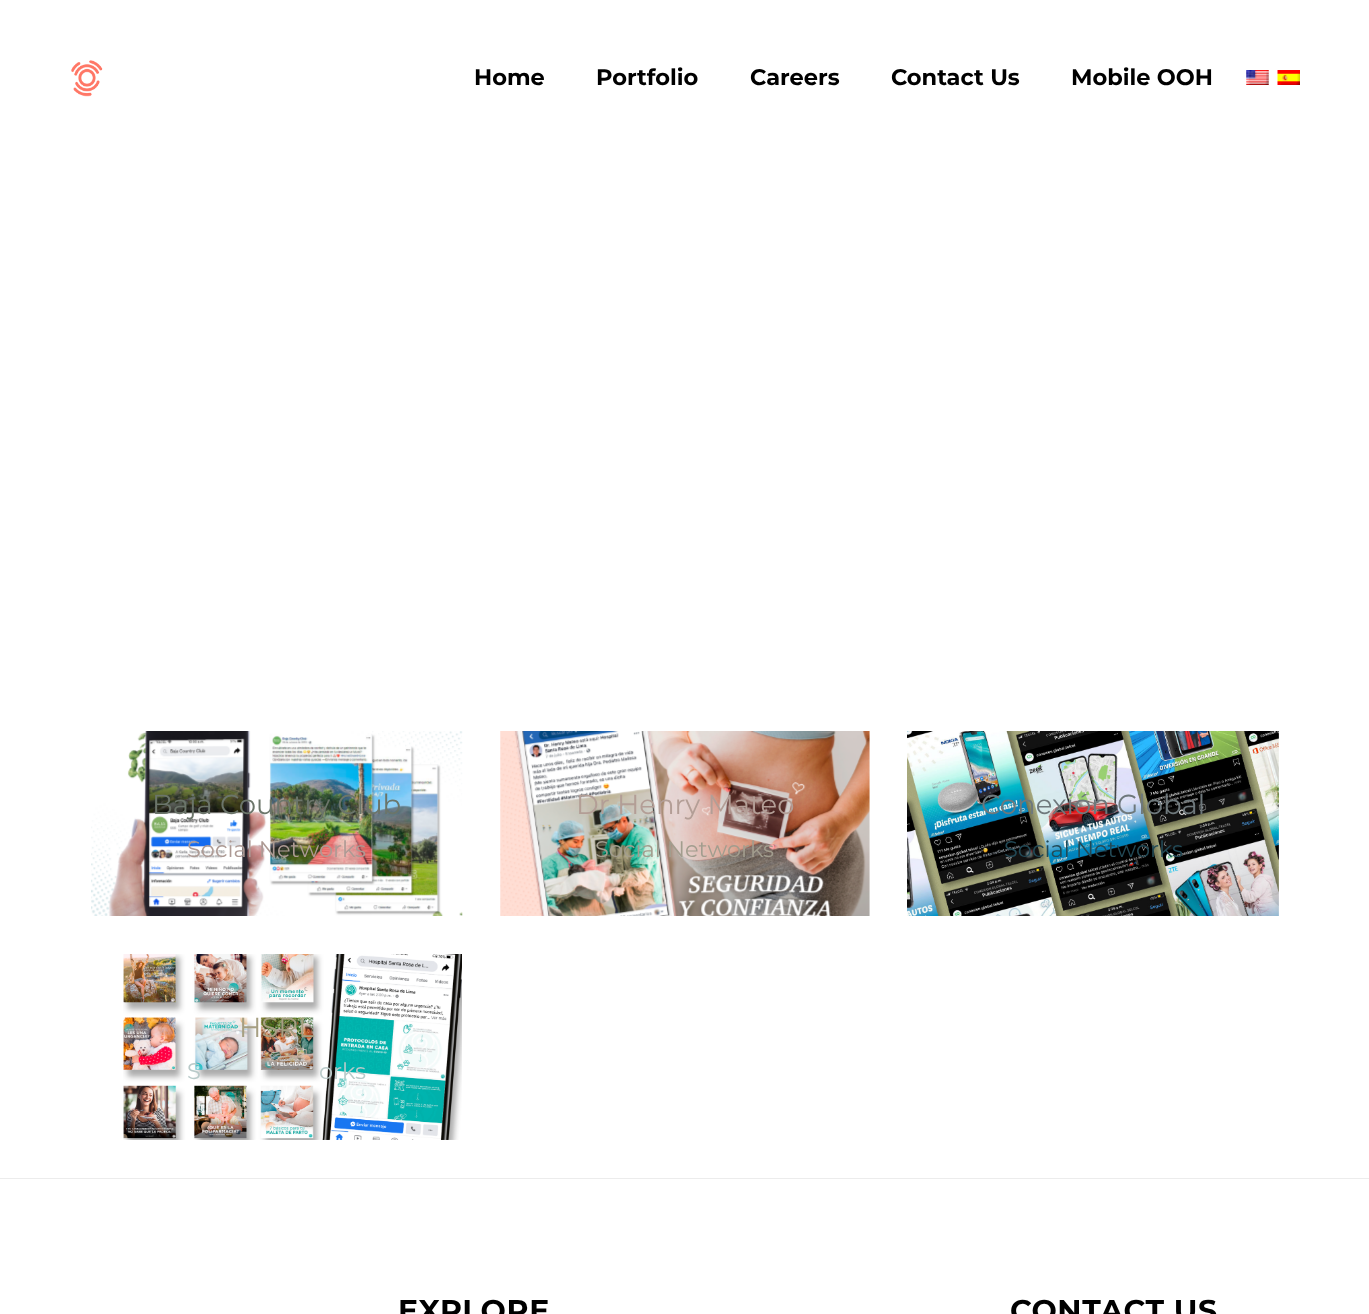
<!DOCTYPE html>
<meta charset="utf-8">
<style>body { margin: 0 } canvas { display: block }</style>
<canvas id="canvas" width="1369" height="1314"></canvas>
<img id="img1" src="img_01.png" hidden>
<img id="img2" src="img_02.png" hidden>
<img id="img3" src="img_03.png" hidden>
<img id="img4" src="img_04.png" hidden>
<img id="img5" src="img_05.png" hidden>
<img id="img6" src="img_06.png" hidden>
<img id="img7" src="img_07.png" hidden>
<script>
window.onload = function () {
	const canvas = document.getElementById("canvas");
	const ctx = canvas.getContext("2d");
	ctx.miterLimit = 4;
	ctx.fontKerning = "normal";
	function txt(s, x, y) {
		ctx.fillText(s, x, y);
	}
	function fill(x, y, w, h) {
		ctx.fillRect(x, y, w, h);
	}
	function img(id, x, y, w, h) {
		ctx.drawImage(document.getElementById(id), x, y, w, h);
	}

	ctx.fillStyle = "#FFFFFF";
	fill(0, 0, 1369, 1314);
	img("img1", 71, 60, 32, 37);
	img("img2", 1246, 70, 23, 15);
	img("img3", 1277, 70, 23, 15);
	img("img4", 91, 731, 372, 185);
	img("img5", 500, 731, 370, 185);
	img("img6", 907, 731, 372, 185);
	img("img7", 123, 954, 339, 186);
	ctx.fillStyle = "#ECECEC";
	fill(0, 1178, 1369, 1);
	ctx.font = "bold 22.5px Montserrat";
	ctx.fillStyle = "#000000";
	txt("Home", 474, 85);
	txt("Portfolio", 596, 85);
	txt("Careers", 750, 85);
	txt("Contact Us", 891, 85);
	txt("Mobile OOH", 1071, 85);
	ctx.font = "27.5px Montserrat";
	ctx.fillStyle = "#6B756A";
	txt("Baja Country Club", 152, 814);
	ctx.font = "22.5px Montserrat";
	ctx.fillStyle = "#AD9A94";
	txt("Social Networks", 187, 857);
	ctx.font = "27.5px Montserrat";
	ctx.fillStyle = "#B39E96";
	txt("Dr Henry Mateo", 576, 814);
	ctx.font = "22.5px Montserrat";
	ctx.fillStyle = "#A29D8E";
	txt("Social Networks", 595, 857);
	ctx.font = "27.5px Montserrat";
	ctx.fillStyle = "#6E787C";
	txt("Conexión Global", 981, 814);
	ctx.font = "22.5px Montserrat";
	ctx.fillStyle = "#224956";
	txt("Social Networks", 1004, 857);
	ctx.font = "27.5px Montserrat";
	ctx.fillStyle = "#A69F82";
	txt("HSRL", 239, 1037);
	ctx.font = "22.5px Montserrat";
	ctx.fillStyle = "#B9CAC9";
	txt("S", 187, 1079);
	txt("orks", 319, 1079);
	ctx.letterSpacing = "0.6px";
	ctx.font = "bold 30px Montserrat";
	ctx.fillStyle = "#000000";
	txt("EXPLORE", 398, 1321);
	txt("CONTACT US", 1010, 1321);
};
</script>
